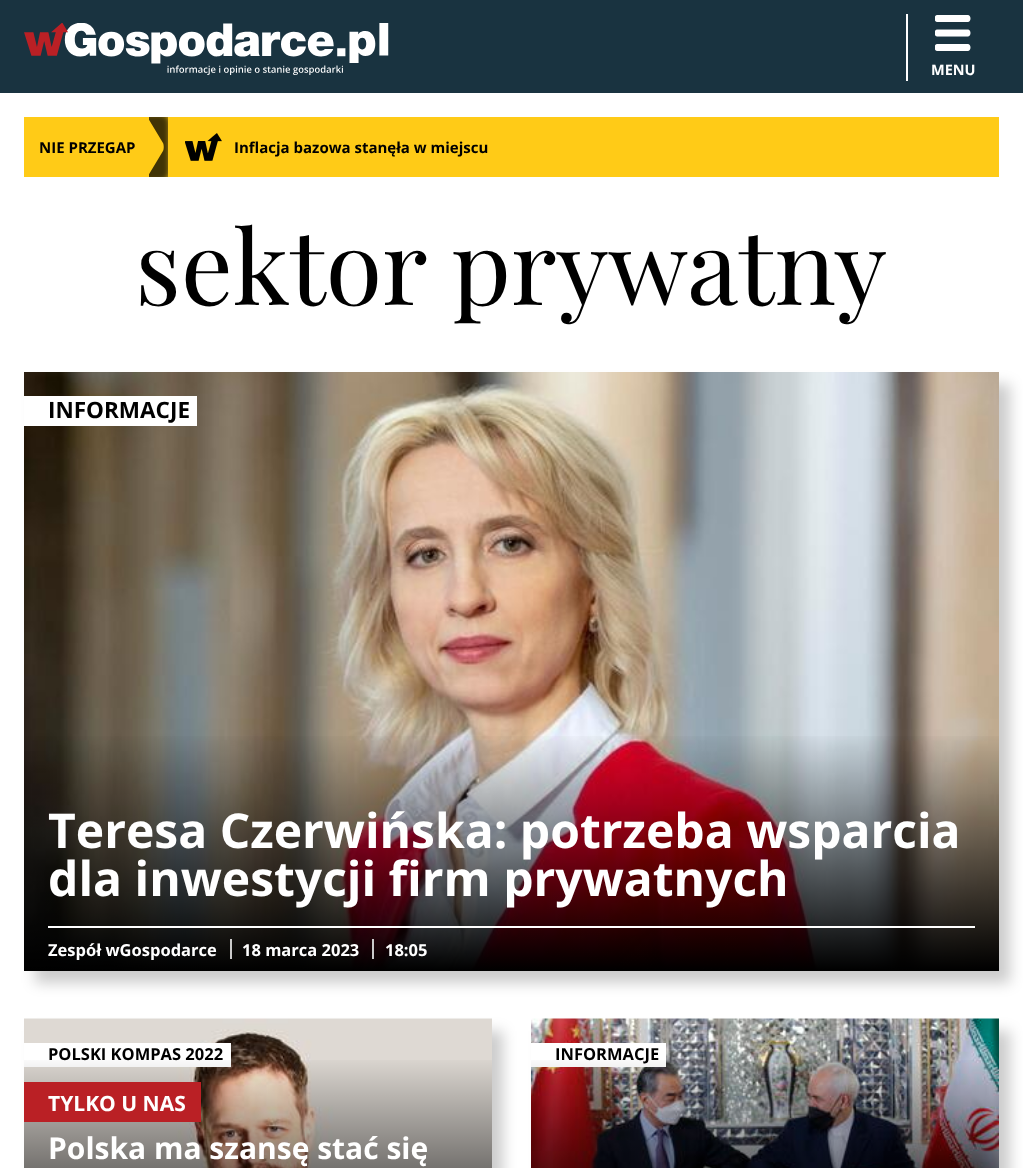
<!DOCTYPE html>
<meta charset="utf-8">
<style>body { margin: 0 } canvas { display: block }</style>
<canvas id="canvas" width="1023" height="1168"></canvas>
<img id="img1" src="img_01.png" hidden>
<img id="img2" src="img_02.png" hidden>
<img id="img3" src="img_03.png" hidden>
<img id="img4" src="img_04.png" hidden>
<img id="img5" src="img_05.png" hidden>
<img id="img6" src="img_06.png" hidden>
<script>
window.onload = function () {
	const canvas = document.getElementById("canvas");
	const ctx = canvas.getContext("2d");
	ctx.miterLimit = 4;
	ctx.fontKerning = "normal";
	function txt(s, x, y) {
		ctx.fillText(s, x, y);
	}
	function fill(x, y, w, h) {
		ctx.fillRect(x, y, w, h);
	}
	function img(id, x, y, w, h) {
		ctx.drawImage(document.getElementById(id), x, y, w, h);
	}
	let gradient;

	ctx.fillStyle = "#FFFFFF";
	fill(0, 0, 1023, 1168);
	ctx.fillStyle = "#193340";
	fill(0, 0, 1023, 93);
	img("img1", 24, 23, 365, 52);
	ctx.fillStyle = "#FFFFFF";
	fill(906, 14, 2, 67);
	img("img2", 935, 15, 36, 36);
	ctx.fillStyle = "#FFCB17";
	fill(24, 117, 975, 60);
	ctx.save();
	ctx.beginPath();
	ctx.rect(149, 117, 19, 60);
	ctx.clip();
	ctx.fillStyle = "rgba(0, 0, 0, 0.75)";
	ctx.filter = "blur(3px)";
	ctx.beginPath();
	ctx.roundRect(101, 113, 69, 69, 9);
	ctx.fill();
	ctx.filter = "none";
	ctx.restore();
	ctx.save();
	ctx.beginPath();
	ctx.rect(149, 117, 19, 60);
	ctx.clip();
	ctx.beginPath();
	ctx.moveTo(137, 100);
	ctx.lineTo(163, 143);
	ctx.bezierCurveTo(164, 145, 164, 149, 163, 151);
	ctx.lineTo(137, 194);
	ctx.bezierCurveTo(135, 196, 133, 196, 132, 194);
	ctx.lineTo(106, 151);
	ctx.bezierCurveTo(105, 149, 105, 145, 106, 143);
	ctx.lineTo(132, 100);
	ctx.bezierCurveTo(133, 98, 135, 98, 137, 100);
	ctx.closePath();
	ctx.fill();
	ctx.restore();
	img("img3", 185, 133, 37, 28);
	ctx.fillStyle = "rgba(0, 0, 0, 0.2)";
	ctx.filter = "blur(7px)";
	ctx.beginPath();
	ctx.rect(35, 384, 975, 599);
	ctx.fill();
	ctx.filter = "none";
	img("img4", 24, 372, 975, 598);
	ctx.fillStyle = "#FFFFFF";
	fill(24, 396, 173, 30);
	gradient = ctx.createLinearGradient(512, 971, 512, 731);
	gradient.addColorStop(0, "#000000");
	gradient.addColorStop(0.5, "rgba(0, 0, 0, 0.5)");
	gradient.addColorStop(1, "rgba(0, 0, 0, 0)");
	ctx.fillStyle = gradient;
	fill(24, 736, 975, 235);
	ctx.fillStyle = "#FFFFFF";
	fill(48, 926, 927, 2);
	ctx.fillStyle = "#CACACA";
	fill(230, 939, 2, 20);
	fill(372, 939, 2, 20);
	ctx.fillStyle = "rgba(0, 0, 0, 0.2)";
	ctx.filter = "blur(7px)";
	ctx.beginPath();
	ctx.rect(35, 1031, 468, 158);
	ctx.fill();
	ctx.filter = "none";
	img("img5", 24, 1018, 468, 150);
	ctx.fillStyle = "#FFFFFF";
	fill(24, 1043, 207, 24);
	ctx.fillStyle = "rgba(0, 0, 0, 0.2)";
	ctx.filter = "blur(7px)";
	ctx.beginPath();
	ctx.rect(542, 1031, 468, 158);
	ctx.fill();
	ctx.filter = "none";
	img("img6", 531, 1018, 468, 150);
	ctx.fillStyle = "#FFFFFF";
	fill(531, 1043, 135, 24);
	ctx.font = "bold 14.5px Open Sans";
	txt("MENU", 931, 75);
	ctx.font = "bold 15px Open Sans";
	ctx.fillStyle = "#000000";
	txt("NIE PRZEGAP", 39, 153);
	txt("Inflacja bazowa stanęła w miejscu", 234, 153);
	ctx.font = "102.75px Playfair Display";
	txt("sektor prywatny", 135, 305);
	ctx.font = "bold 22.5px Open Sans";
	txt("INFORMACJE", 48, 418);
	ctx.font = "bold 48px Open Sans";
	ctx.fillStyle = "#FFFFFF";
	txt("Teresa Czerwińska: potrzeba wsparcia", 48, 848);
	txt("dla inwestycji firm prywatnych", 48, 896);
	ctx.font = "bold 16.5px Open Sans";
	txt("Zespół wGospodarce", 48, 956);
	txt("18 marca 2023", 242, 956);
	txt("18:05", 385, 956);
	ctx.fillStyle = "#000000";
	txt("POLSKI KOMPAS 2022", 48, 1060);
	gradient = ctx.createLinearGradient(258, 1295, 258, 1055);
	gradient.addColorStop(0, "#000000");
	gradient.addColorStop(0.5, "rgba(0, 0, 0, 0.5)");
	gradient.addColorStop(1, "rgba(0, 0, 0, 0)");
	ctx.fillStyle = gradient;
	fill(24, 1060, 468, 108);
	ctx.fillStyle = "#BA2025";
	fill(24, 1082, 177, 40);
	ctx.font = "bold 21px Open Sans";
	ctx.fillStyle = "#FFFFFF";
	txt("TYLKO U NAS", 48, 1111);
	ctx.font = "bold 30px Open Sans";
	txt("Polska ma szansę stać się", 48, 1159);
	ctx.font = "bold 16.5px Open Sans";
	ctx.fillStyle = "#000000";
	txt("INFORMACJE", 555, 1060);
	gradient = ctx.createLinearGradient(765, 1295, 765, 1055);
	gradient.addColorStop(0, "#000000");
	gradient.addColorStop(0.5, "rgba(0, 0, 0, 0.5)");
	gradient.addColorStop(1, "rgba(0, 0, 0, 0)");
	ctx.fillStyle = gradient;
	fill(531, 1060, 468, 108);
};
</script>
